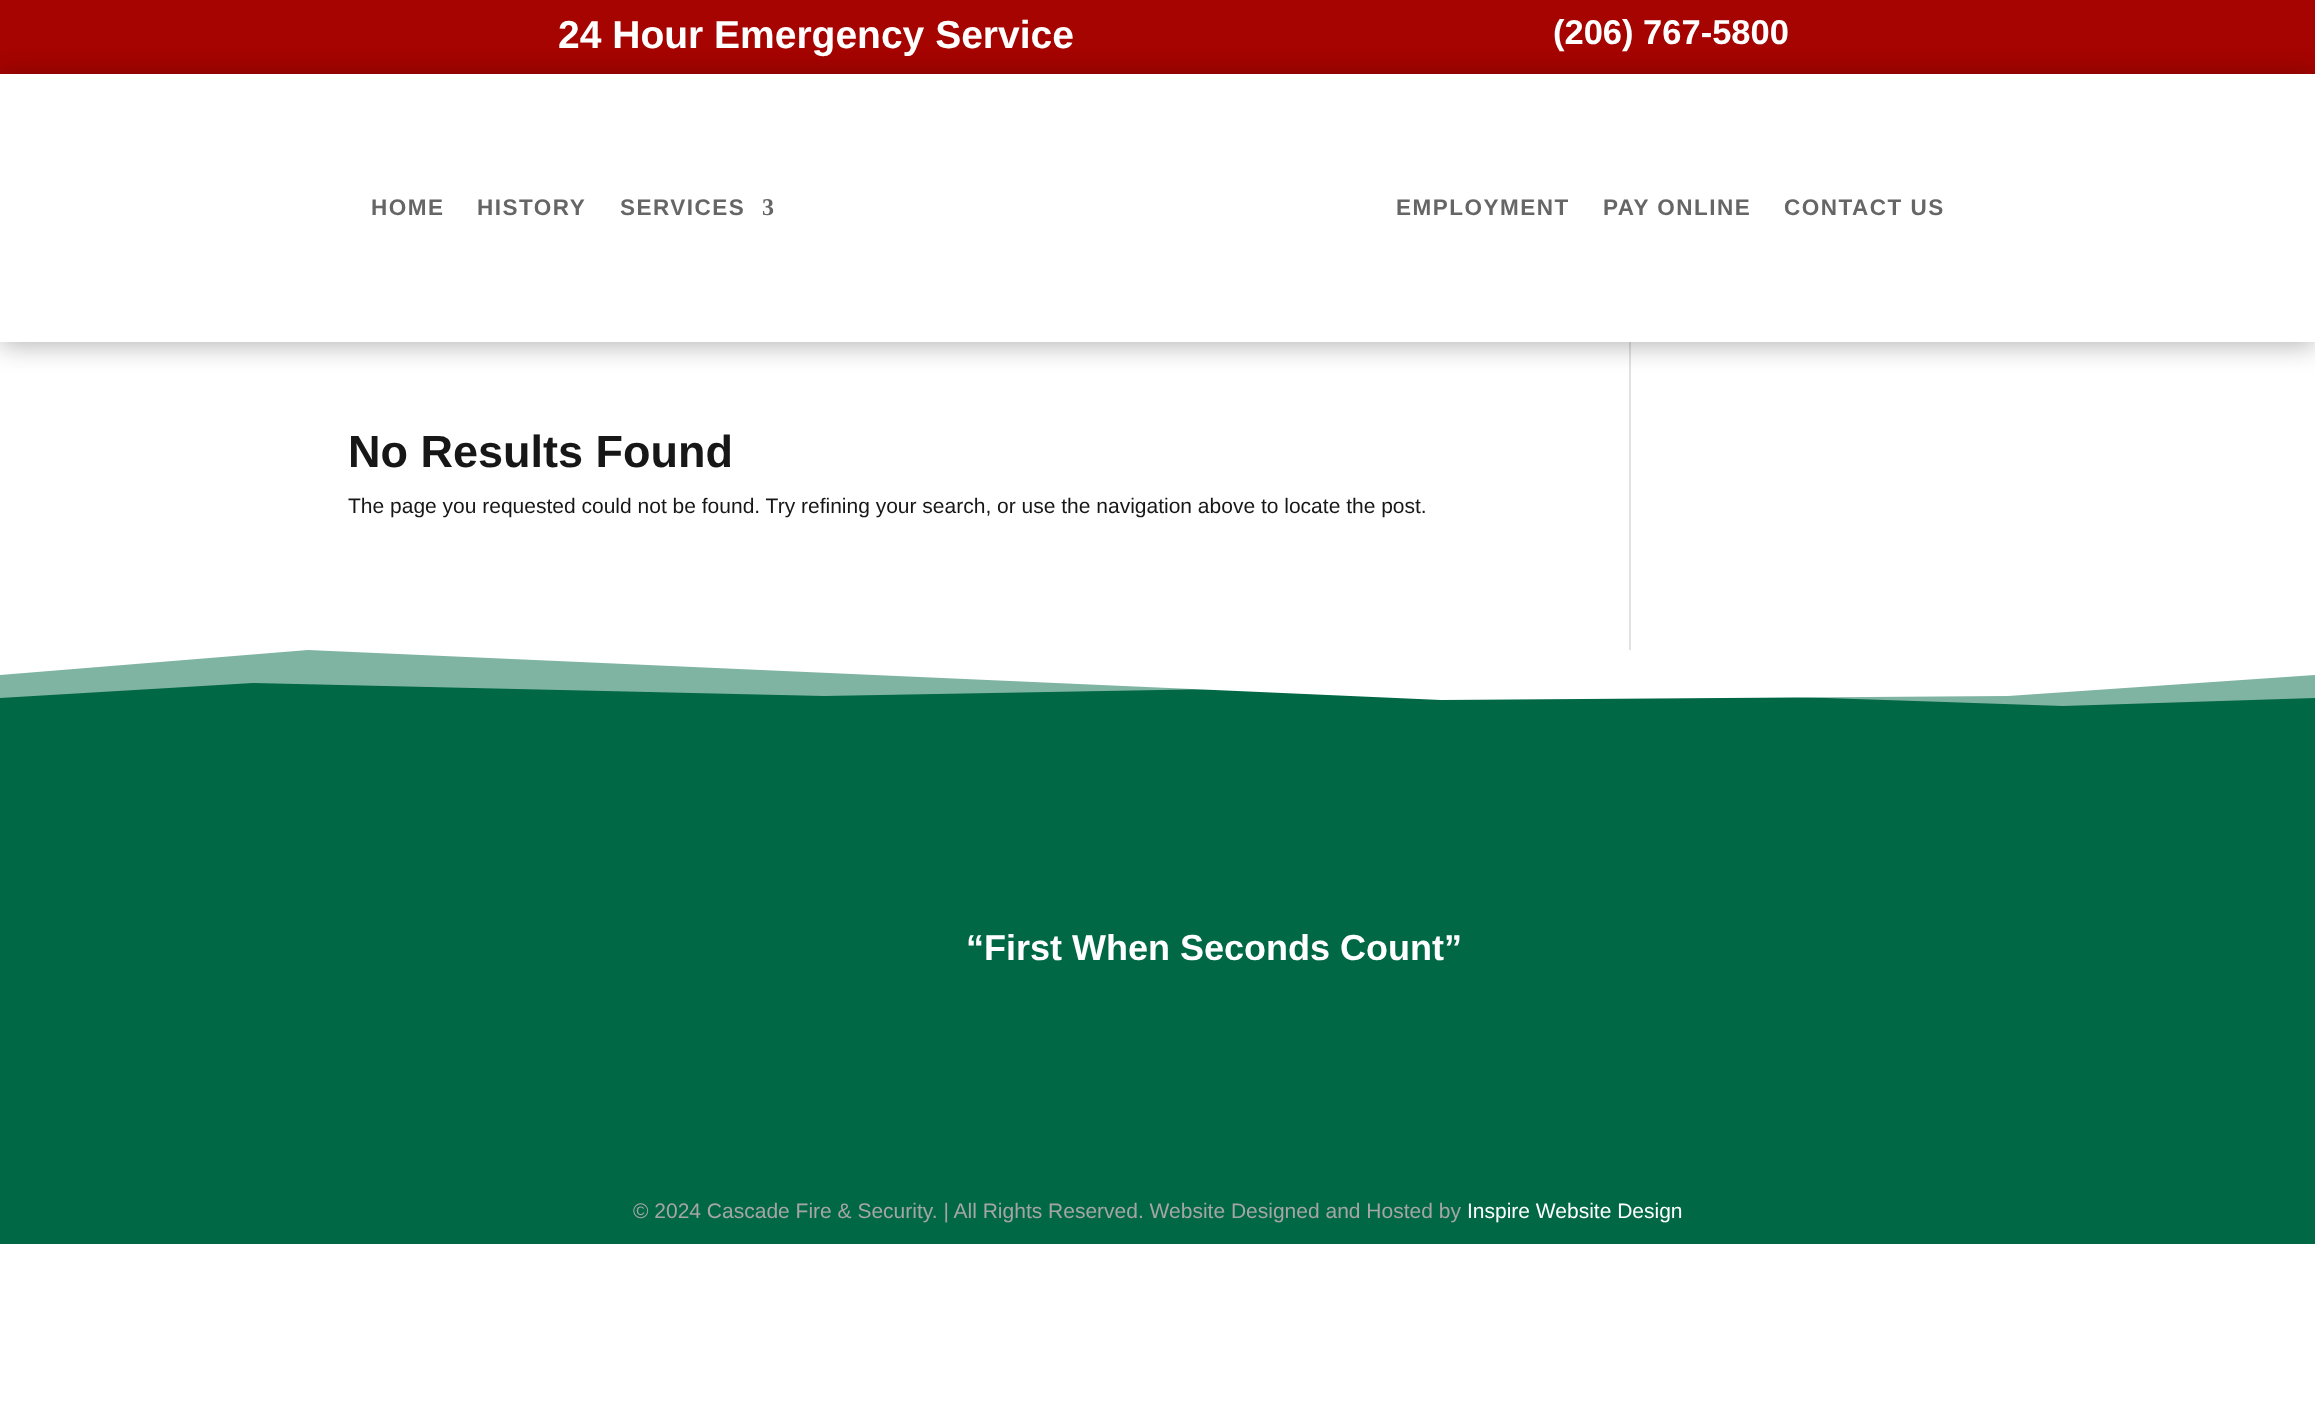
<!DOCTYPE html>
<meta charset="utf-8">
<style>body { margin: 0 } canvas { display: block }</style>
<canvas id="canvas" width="2315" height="1428"></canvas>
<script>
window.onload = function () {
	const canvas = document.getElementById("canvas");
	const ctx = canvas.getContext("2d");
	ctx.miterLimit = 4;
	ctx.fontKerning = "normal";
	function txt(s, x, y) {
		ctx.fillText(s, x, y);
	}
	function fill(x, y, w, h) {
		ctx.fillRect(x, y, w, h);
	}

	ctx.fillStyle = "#FFFFFF";
	fill(0, 0, 2315, 1428);
	ctx.fillStyle = "#A50400";
	fill(0, 0, 2315, 74);
	ctx.fillStyle = "#E2E2E2";
	fill(1629, 342, 2, 308);
	ctx.save();
	ctx.beginPath();
	ctx.moveTo(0, 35);
	ctx.lineTo(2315, 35);
	ctx.lineTo(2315, 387);
	ctx.lineTo(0, 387);
	ctx.closePath();
	ctx.moveTo(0, 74);
	ctx.lineTo(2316, 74);
	ctx.lineTo(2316, 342);
	ctx.lineTo(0, 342);
	ctx.closePath();
	ctx.clip("evenodd");
	ctx.fillStyle = "rgba(0, 0, 0, 0.3)";
	ctx.filter = "blur(13.5px)";
	ctx.beginPath();
	ctx.rect(0, 77, 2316, 268);
	ctx.fill();
	ctx.filter = "none";
	ctx.restore();
	ctx.fillStyle = "#006844";
	fill(0, 683, 2315, 561);
	ctx.fillStyle = "#80B4A2";
	ctx.beginPath();
	ctx.moveTo(0, 698);
	ctx.lineTo(253, 683);
	ctx.lineTo(824, 696);
	ctx.lineTo(1441, 685);
	ctx.lineTo(2063, 706);
	ctx.lineTo(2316, 698);
	ctx.lineTo(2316, 650);
	ctx.lineTo(0, 650);
	ctx.closePath();
	ctx.fill();
	ctx.fillStyle = "#FFFFFF";
	ctx.beginPath();
	ctx.moveTo(0, 650);
	ctx.lineTo(0, 675);
	ctx.lineTo(308, 650);
	ctx.lineTo(1441, 700);
	ctx.lineTo(2008, 696);
	ctx.lineTo(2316, 675);
	ctx.lineTo(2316, 650);
	ctx.closePath();
	ctx.fill();
	ctx.font = "bold 39px Liberation Sans";
	txt("24 Hour Emergency Service", 558, 48);
	ctx.font = "bold 34.5px Liberation Sans";
	txt("(206) 767-5800", 1553, 44);
	ctx.letterSpacing = "1.5px";
	ctx.font = "bold 22.5px Liberation Sans";
	ctx.fillStyle = "#666666";
	txt("HOME", 371, 215);
	txt("HISTORY", 477, 215);
	txt("SERVICES", 620, 215);
	ctx.font = "bold 24px Liberation Serif";
	txt("3", 762, 215);
	ctx.font = "bold 22.5px Liberation Sans";
	txt("EMPLOYMENT", 1396, 215);
	txt("PAY ONLINE", 1603, 215);
	txt("CONTACT US", 1784, 215);
	ctx.letterSpacing = "0px";
	ctx.font = "bold 45px Liberation Sans";
	ctx.fillStyle = "#171717";
	txt("No Results Found", 348, 467);
	ctx.font = "21px Liberation Sans";
	txt("The page you requested could not be found. Try refining your search, or use the navigation above to locate the post.", 348, 513);
	ctx.font = "bold 36px Liberation Sans";
	ctx.fillStyle = "#FFFFFF";
	txt("“First When Seconds Count”", 966, 960);
	ctx.font = "21px Liberation Sans";
	ctx.fillStyle = "#A5A5A5";
	txt("© 2024 Cascade Fire & Security. | All Rights Reserved. Website Designed and Hosted by", 633, 1218);
	ctx.fillStyle = "#FFFFFF";
	txt("Inspire Website Design", 1467, 1218);
};
</script>
